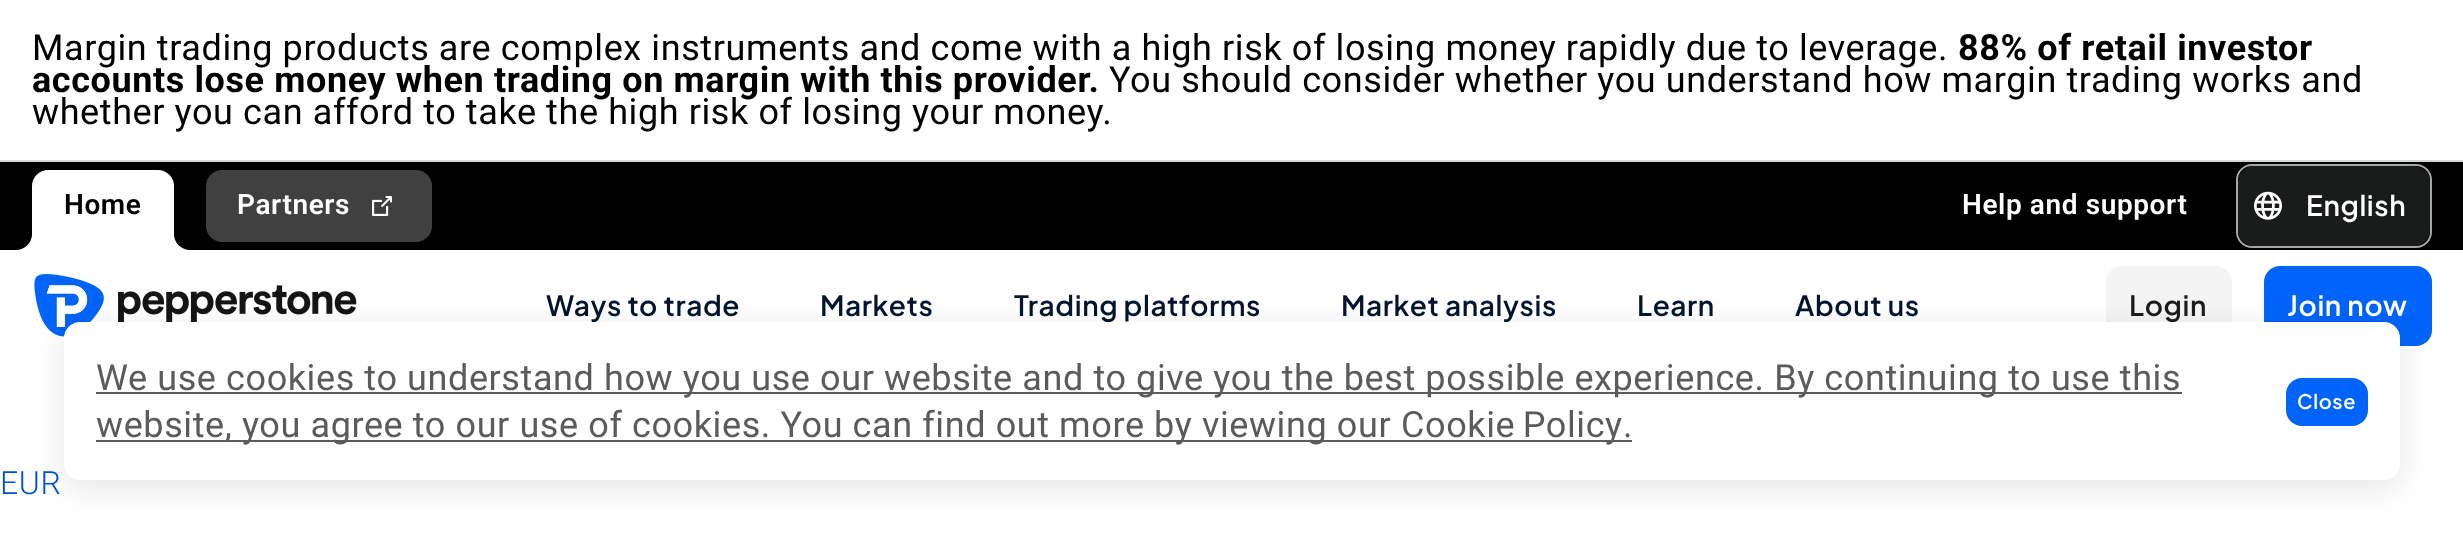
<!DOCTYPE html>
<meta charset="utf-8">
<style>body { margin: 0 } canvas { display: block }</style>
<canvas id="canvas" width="2463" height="544"></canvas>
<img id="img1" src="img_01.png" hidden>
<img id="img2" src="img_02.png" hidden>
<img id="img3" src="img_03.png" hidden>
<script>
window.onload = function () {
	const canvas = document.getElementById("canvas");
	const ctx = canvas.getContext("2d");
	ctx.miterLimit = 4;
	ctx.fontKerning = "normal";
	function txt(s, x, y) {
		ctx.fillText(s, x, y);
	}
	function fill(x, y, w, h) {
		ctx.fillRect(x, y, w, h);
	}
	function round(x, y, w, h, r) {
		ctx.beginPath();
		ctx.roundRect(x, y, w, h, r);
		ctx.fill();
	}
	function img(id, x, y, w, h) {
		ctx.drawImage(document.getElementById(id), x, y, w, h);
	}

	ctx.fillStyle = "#FFFFFF";
	fill(0, 0, 2463, 544);
	ctx.fillStyle = "#D6D6D6";
	fill(0, 160, 2463, 2);
	ctx.fillStyle = "#000000";
	fill(0, 162, 2463, 88);
	ctx.fillStyle = "#FFFFFF";
	ctx.beginPath();
	ctx.roundRect(32, 170, 142, 80, [16, 16, 0, 0]);
	ctx.fill();
	fill(16, 234, 16, 16);
	ctx.fillStyle = "#000000";
	ctx.beginPath();
	ctx.roundRect(16, 218, 16, 32, [0, 16, 16, 0]);
	ctx.fill();
	ctx.fillStyle = "#FFFFFF";
	fill(174, 234, 16, 16);
	ctx.fillStyle = "#000000";
	ctx.beginPath();
	ctx.roundRect(174, 218, 16, 32, [16, 0, 0, 16]);
	ctx.fill();
	ctx.fillStyle = "#404040";
	round(206, 170, 226, 72, 16);
	img("img1", 372, 196, 20, 20);
	ctx.beginPath();
	ctx.roundRect(2237, 165, 194, 82, 15);
	ctx.strokeStyle = "#A6A6A6";
	ctx.lineWidth = 2;
	ctx.stroke();
	ctx.fillStyle = "#1A1B1B";
	round(2238, 166, 192, 80, 16);
	img("img2", 2254, 191, 28, 29);
	img("img3", 34, 274, 323, 63);
	ctx.fillStyle = "#F4F4F4";
	round(2106, 266, 126, 80, 16);
	ctx.fillStyle = "#0064FA";
	round(2264, 266, 168, 80, 16);
	ctx.fillStyle = "rgba(0, 0, 0, 0.1)";
	ctx.filter = "blur(16px)";
	ctx.beginPath();
	ctx.roundRect(64, 330, 2336, 158, 16);
	ctx.fill();
	ctx.filter = "none";
	ctx.letterSpacing = "0.6px";
	ctx.font = "36px Roboto";
	ctx.fillStyle = "#000000";
	txt("Margin trading products are complex instruments and come with a high risk of losing money rapidly due to leverage.", 32, 60);
	ctx.font = "bold 36px Roboto";
	txt("88% of retail investor", 1958, 60);
	txt("accounts lose money when trading on margin with this provider.", 32, 92);
	ctx.font = "36px Roboto";
	txt("You should consider whether you understand how margin trading works and", 1109, 92);
	txt("whether you can afford to take the high risk of losing your money.", 32, 124);
	ctx.font = "600 28px Roboto";
	txt("Home", 64, 214);
	ctx.fillStyle = "#FFFFFF";
	txt("Partners", 237, 214);
	txt("Help and support", 1962, 214);
	ctx.font = "600 28px Plus Jakarta Sans";
	txt("English", 2306, 216);
	ctx.fillStyle = "#03142E";
	txt("Ways to trade", 546, 316);
	txt("Markets", 820, 316);
	txt("Trading platforms", 1014, 316);
	txt("Market analysis", 1341, 316);
	txt("Learn", 1637, 316);
	txt("About us", 1795, 316);
	ctx.fillStyle = "#1A1B1B";
	txt("Login", 2129, 316);
	ctx.fillStyle = "#FFFFFF";
	txt("Join now", 2287, 316);
	ctx.font = "300 32px Roboto";
	ctx.fillStyle = "#0052CC";
	txt("EUR", 0, 494);
	ctx.fillStyle = "#FFFFFF";
	round(64, 322, 2336, 158, 16);
	ctx.fillStyle = "#5A5B5B";
	fill(96, 392, 2086, 2);
	ctx.font = "36px Roboto";
	txt("We use cookies to understand how you use our website and to give you the best possible experience. By continuing to use this", 96, 390);
	fill(96, 440, 1536, 2);
	txt("website, you agree to our use of cookies. You can find out more by viewing our", 96, 437);
	ctx.wordSpacing = "-2px";
	txt("Cookie Policy", 1401, 437);
	ctx.wordSpacing = "0px";
	txt(".", 1623, 437);
	ctx.fillStyle = "#0064FA";
	round(2286, 378, 82, 48, 16);
	ctx.font = "600 20px Plus Jakarta Sans";
	ctx.fillStyle = "#FFFFFF";
	txt("Close", 2297, 409);
};
</script>
